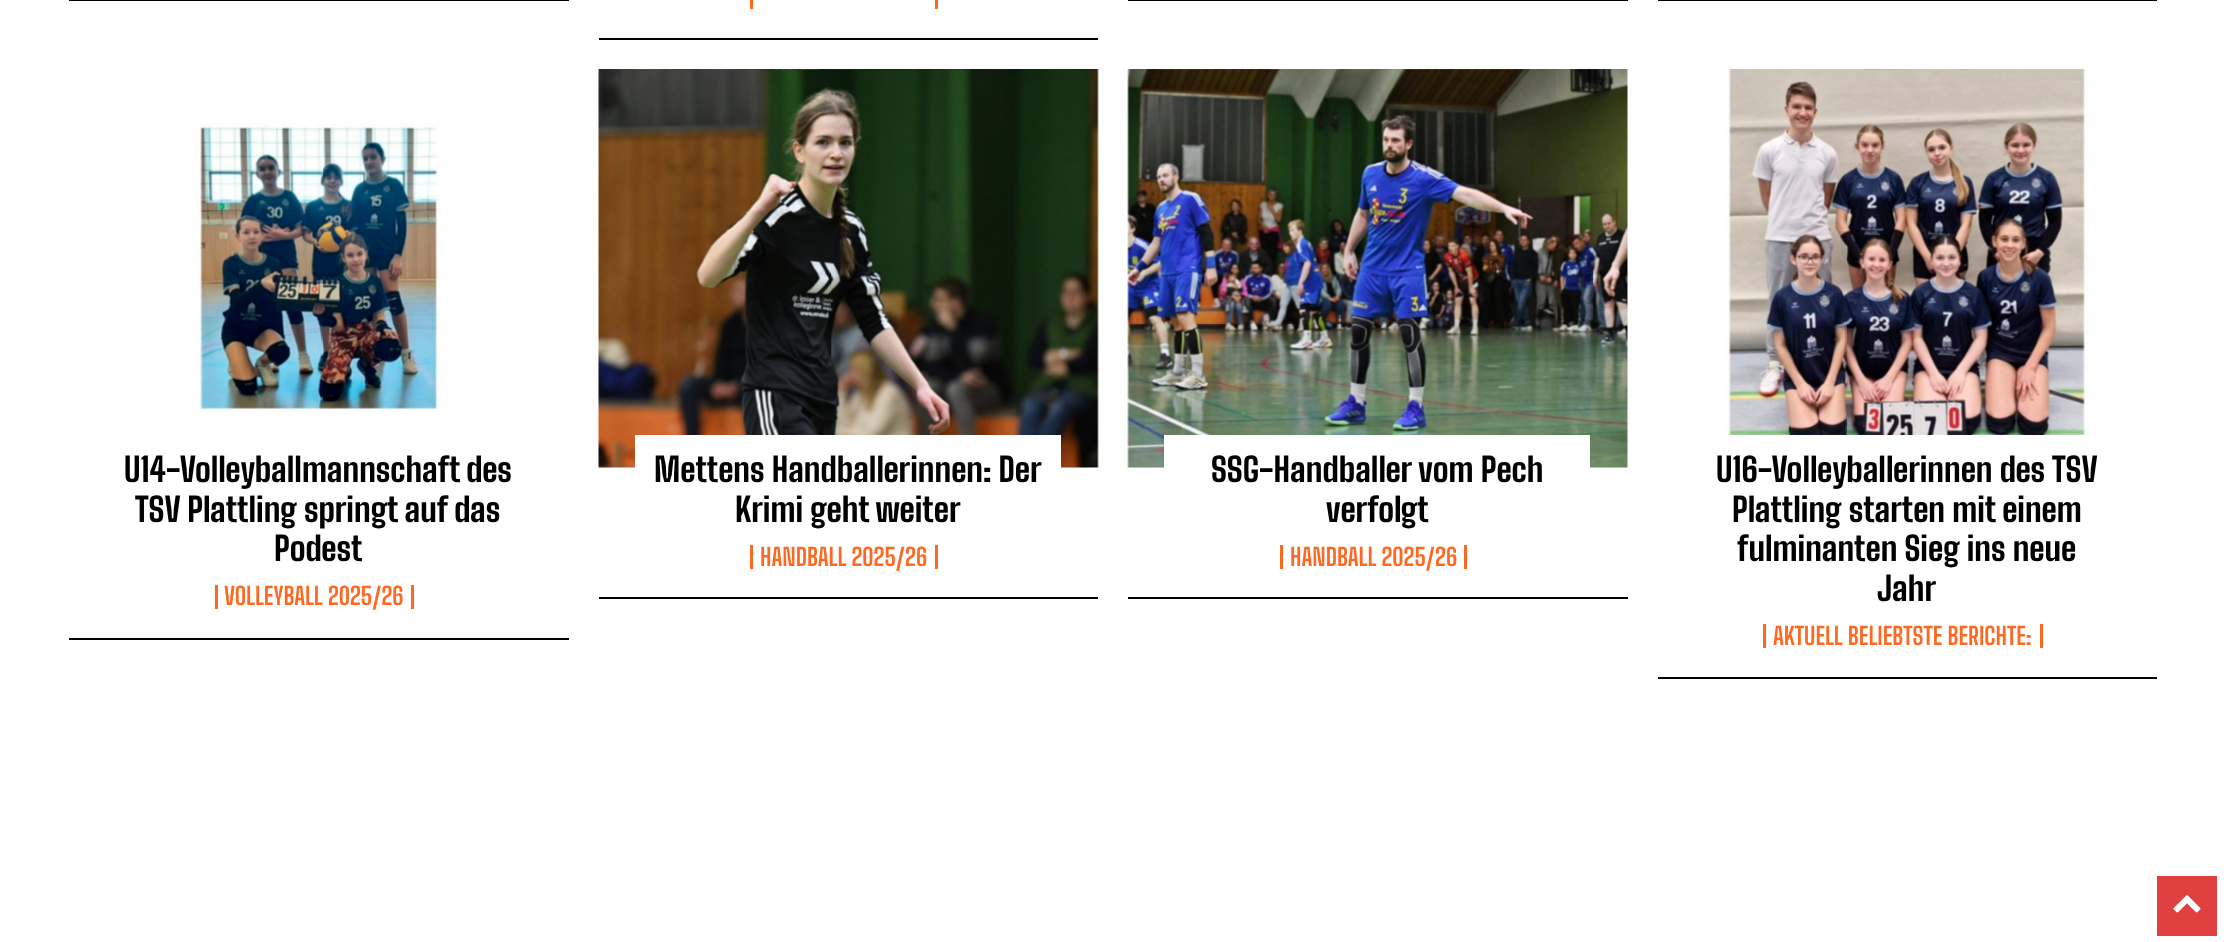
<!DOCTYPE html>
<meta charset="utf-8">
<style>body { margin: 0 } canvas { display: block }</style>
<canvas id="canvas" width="2224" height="942"></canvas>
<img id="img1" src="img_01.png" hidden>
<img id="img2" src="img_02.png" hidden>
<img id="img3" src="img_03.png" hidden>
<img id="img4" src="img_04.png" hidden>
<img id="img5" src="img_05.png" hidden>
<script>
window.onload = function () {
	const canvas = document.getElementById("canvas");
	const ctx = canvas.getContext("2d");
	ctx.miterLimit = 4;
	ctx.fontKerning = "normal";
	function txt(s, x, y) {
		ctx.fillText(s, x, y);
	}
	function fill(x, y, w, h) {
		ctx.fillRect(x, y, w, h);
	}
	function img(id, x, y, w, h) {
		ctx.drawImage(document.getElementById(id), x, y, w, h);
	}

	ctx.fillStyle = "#FFFFFF";
	fill(0, 0, 2224, 942);
	ctx.fillStyle = "#000000";
	fill(69, 0, 500, 1);
	ctx.fillStyle = "#FF6821";
	fill(935, 0, 3, 9);
	fill(750, 0, 3, 9);
	ctx.fillStyle = "#000000";
	fill(599, 38, 499, 2);
	fill(1128, 0, 500, 1);
	fill(1658, 0, 499, 1);
	img("img1", 198, 123, 243, 290);
	ctx.fillStyle = "#FF6821";
	fill(411, 585, 3, 24);
	fill(215, 585, 3, 24);
	ctx.fillStyle = "#000000";
	fill(69, 638, 500, 2);
	img("img2", 598, 69, 501, 399);
	ctx.fillStyle = "#FFFFFF";
	fill(635, 435, 426, 33);
	ctx.fillStyle = "#FF6821";
	fill(935, 545, 3, 24);
	fill(750, 545, 3, 24);
	ctx.fillStyle = "#000000";
	fill(599, 597, 499, 2);
	img("img3", 1127, 69, 501, 399);
	ctx.fillStyle = "#FFFFFF";
	fill(1164, 435, 426, 33);
	ctx.fillStyle = "#FF6821";
	fill(1464, 545, 3, 24);
	fill(1280, 545, 3, 24);
	ctx.fillStyle = "#000000";
	fill(1128, 597, 500, 2);
	img("img4", 1721, 69, 369, 366);
	ctx.fillStyle = "#FF6821";
	fill(2040, 624, 3, 24);
	fill(1763, 624, 3, 24);
	ctx.fillStyle = "#000000";
	fill(1658, 677, 499, 2);
	ctx.fillStyle = "#E04040";
	fill(2157, 876, 60, 60);
	img("img5", 2173, 895, 28, 18);
	ctx.font = "800 33px Big Shoulders Text";
	ctx.fillStyle = "#000000";
	txt("U14-Volleyballmannschaft des", 124, 482);
	txt("TSV Plattling springt auf das", 135, 522);
	txt("Podest", 274, 561);
	ctx.font = "bold 24px Big Shoulders Text";
	ctx.fillStyle = "#FF6821";
	txt("VOLLEYBALL 2025/26", 224, 605);
	ctx.font = "800 33px Big Shoulders Text";
	ctx.fillStyle = "#000000";
	txt("Mettens Handballerinnen: Der", 654, 482);
	txt("Krimi geht weiter", 735, 522);
	ctx.font = "bold 24px Big Shoulders Text";
	ctx.fillStyle = "#FF6821";
	txt("HANDBALL 2025/26", 760, 566);
	ctx.font = "800 33px Big Shoulders Text";
	ctx.fillStyle = "#000000";
	txt("SSG-Handballer vom Pech", 1211, 482);
	txt("verfolgt", 1326, 522);
	ctx.font = "bold 24px Big Shoulders Text";
	ctx.fillStyle = "#FF6821";
	txt("HANDBALL 2025/26", 1290, 566);
	ctx.font = "800 33px Big Shoulders Text";
	ctx.fillStyle = "#000000";
	txt("U16-Volleyballerinnen des TSV", 1716, 482);
	txt("Plattling starten mit einem", 1732, 522);
	txt("fulminanten Sieg ins neue", 1737, 561);
	txt("Jahr", 1877, 601);
	ctx.font = "bold 24px Big Shoulders Text";
	ctx.fillStyle = "#FF6821";
	txt("AKTUELL BELIEBTSTE BERICHTE:", 1773, 645);
};
</script>
